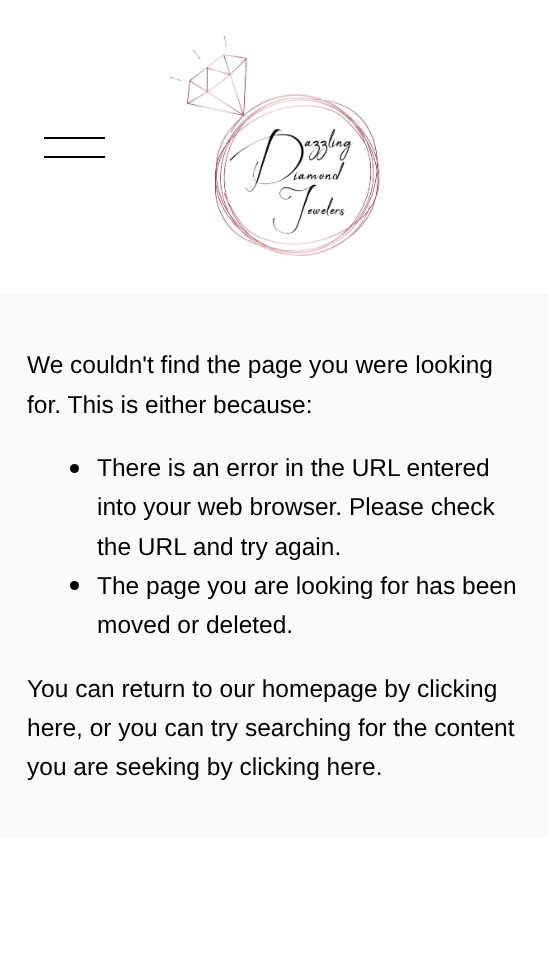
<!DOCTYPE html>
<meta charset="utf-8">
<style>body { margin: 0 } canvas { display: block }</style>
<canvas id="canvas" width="548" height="963"></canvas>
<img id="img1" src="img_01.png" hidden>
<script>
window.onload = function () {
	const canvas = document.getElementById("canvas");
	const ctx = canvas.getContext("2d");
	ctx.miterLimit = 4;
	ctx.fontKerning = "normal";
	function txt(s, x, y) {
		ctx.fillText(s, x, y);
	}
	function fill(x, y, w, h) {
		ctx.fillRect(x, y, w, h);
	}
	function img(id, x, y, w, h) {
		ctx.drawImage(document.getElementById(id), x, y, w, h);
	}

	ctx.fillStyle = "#FAFAFA";
	fill(0, 0, 548, 963);
	ctx.fillStyle = "#FFFFFF";
	fill(0, 0, 548, 294);
	ctx.fillStyle = "#000000";
	fill(44, 137, 61, 2);
	fill(44, 156, 61, 2);
	img("img1", 168, 35, 212, 222);
	ctx.beginPath();
	ctx.arc(74.5, 468.5, 4.5, 0, Math.PI * 2);
	ctx.fill();
	ctx.beginPath();
	ctx.arc(74.5, 585.5, 4.5, 0, Math.PI * 2);
	ctx.fill();
	ctx.fillStyle = "#FFFFFF";
	fill(0, 838, 548, 125);
	ctx.font = "24.5px Liberation Sans";
	ctx.fillStyle = "#000000";
	txt("We couldn't find the page you were looking", 27, 373);
	txt("for. This is either because:", 27, 413);
	txt("There is an error in the URL entered", 97, 476);
	txt("into your web browser. Please check", 97, 515);
	txt("the URL and try again.", 97, 555);
	txt("The page you are looking for has been", 97, 594);
	txt("moved or deleted.", 97, 633);
	txt("You can return to our homepage by clicking", 27, 697);
	txt("here, or you can try searching for the content", 27, 736);
	txt("you are seeking by clicking here.", 27, 775);
};
</script>
